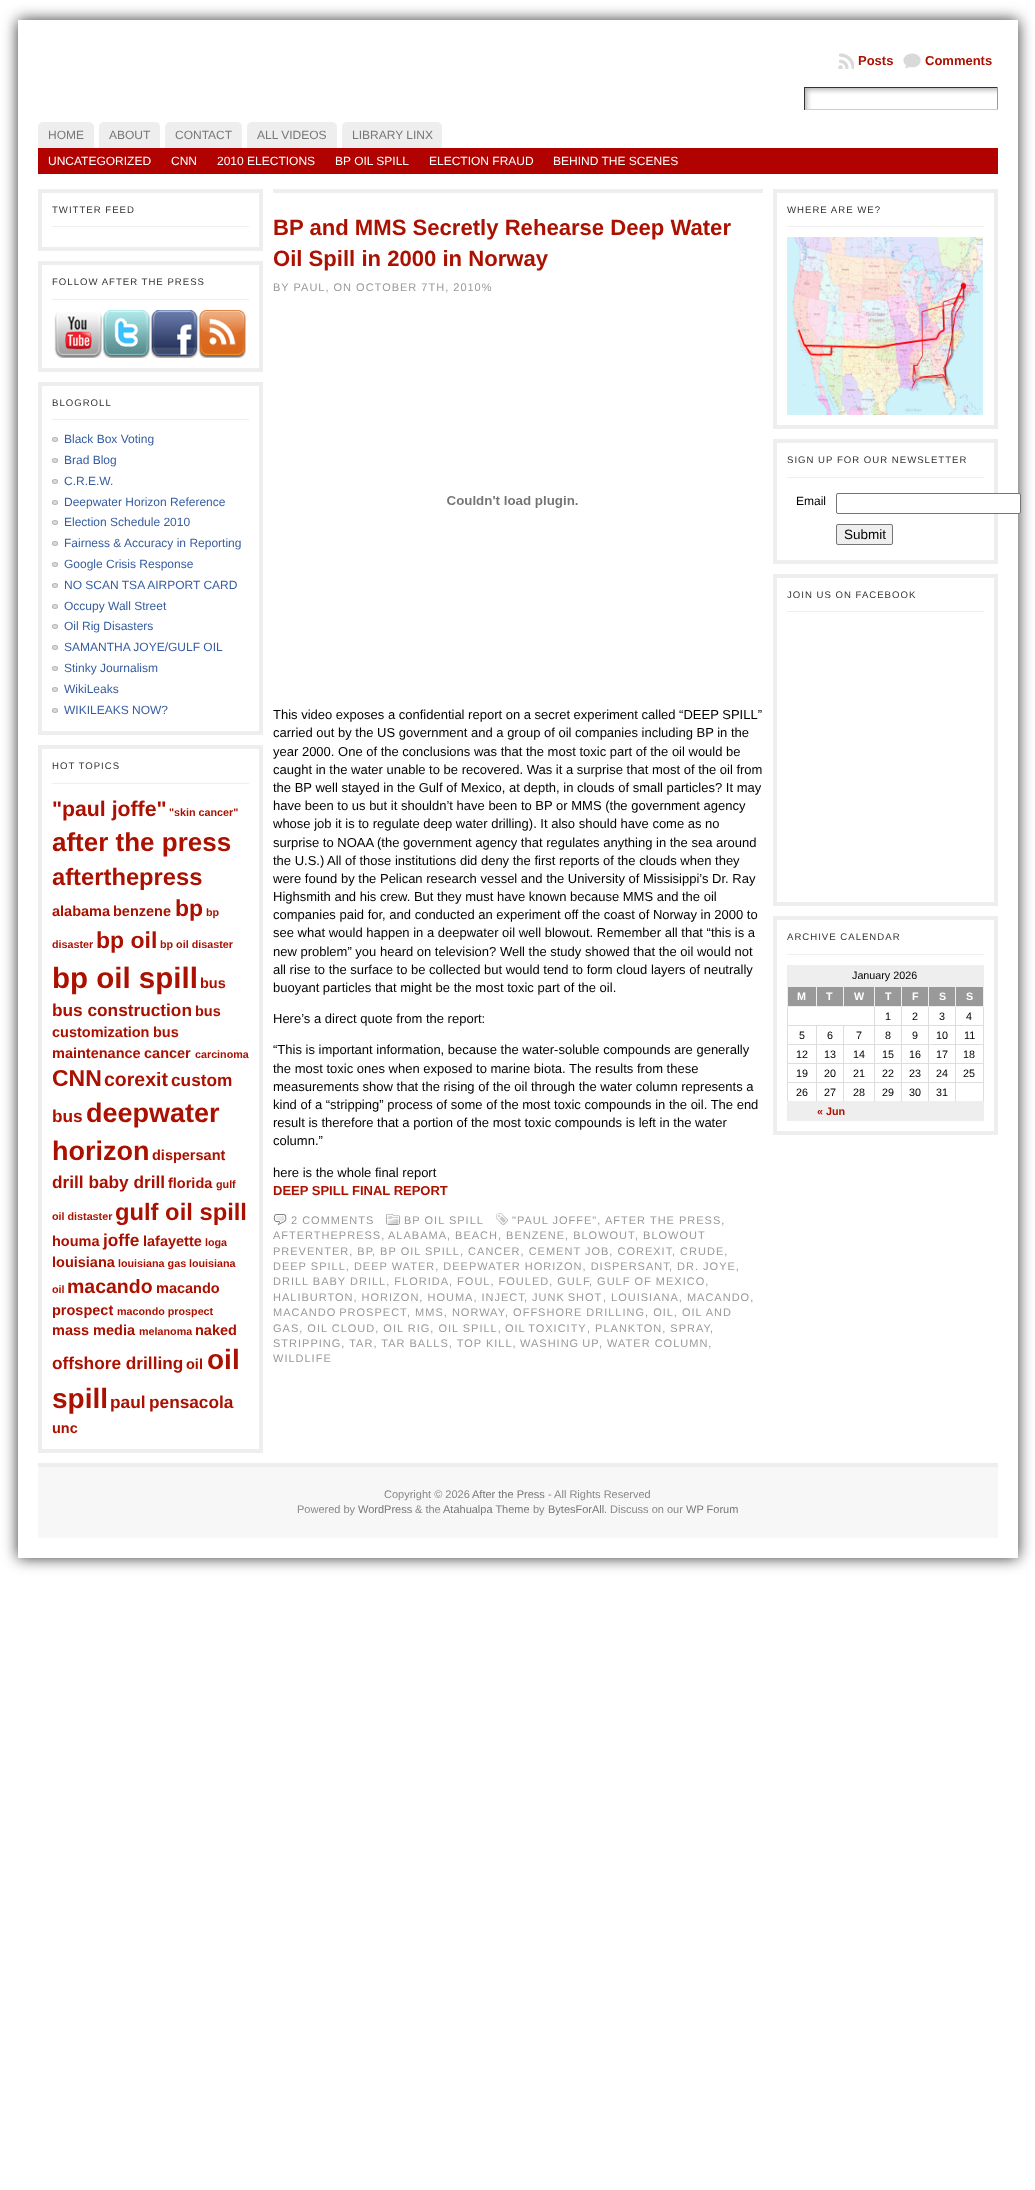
<!DOCTYPE html>
<meta charset="utf-8">
<style>body { margin: 0 } canvas { display: block }</style>
<canvas id="canvas" width="1035" height="2190"></canvas>
<img id="img1" src="img_01.png" hidden>
<img id="img2" src="img_02.png" hidden>
<img id="img3" src="img_03.png" hidden>
<img id="img4" src="img_04.png" hidden>
<img id="img5" src="img_05.png" hidden>
<img id="img6" src="img_06.png" hidden>
<img id="img7" src="img_07.png" hidden>
<img id="img8" src="img_08.png" hidden>
<img id="img9" src="img_09.png" hidden>
<img id="img10" src="img_10.png" hidden>
<img id="img11" src="img_11.png" hidden>
<img id="img12" src="img_12.png" hidden>
<img id="img13" src="img_13.png" hidden>
<script>
window.onload = function () {
	const canvas = document.getElementById("canvas");
	const ctx = canvas.getContext("2d");
	ctx.miterLimit = 4;
	ctx.fontKerning = "normal";
	function txt(s, x, y) {
		ctx.fillText(s, x, y);
	}
	function fill(x, y, w, h) {
		ctx.fillRect(x, y, w, h);
	}
	function img(id, x, y, w, h) {
		ctx.drawImage(document.getElementById(id), x, y, w, h);
	}

	ctx.fillStyle = "#FFFFFF";
	fill(0, 0, 1035, 2190);
	ctx.save();
	ctx.beginPath();
	ctx.moveTo(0, 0);
	ctx.lineTo(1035, 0);
	ctx.lineTo(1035, 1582);
	ctx.lineTo(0, 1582);
	ctx.closePath();
	ctx.moveTo(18, 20);
	ctx.lineTo(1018, 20);
	ctx.lineTo(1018, 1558);
	ctx.lineTo(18, 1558);
	ctx.closePath();
	ctx.clip("evenodd");
	ctx.fillStyle = "#333333";
	ctx.filter = "blur(7.5px)";
	ctx.beginPath();
	ctx.rect(18, 20, 1000, 1538);
	ctx.fill();
	ctx.filter = "none";
	ctx.restore();
	img("img1", 838, 53, 16, 16);
	img("img2", 903, 53, 18, 16);
	img("img3", 805, 88, 192, 21);
	ctx.fillStyle = "#333333";
	fill(804, 87, 194, 1);
	ctx.fillStyle = "#999999";
	fill(997, 87, 1, 23);
	ctx.fillStyle = "#CCCCCC";
	fill(804, 109, 194, 1);
	ctx.fillStyle = "#333333";
	fill(804, 87, 1, 23);
	ctx.fillStyle = "#EEEEEE";
	ctx.beginPath();
	ctx.roundRect(38, 122, 56, 26, [5, 5, 0, 0]);
	ctx.fill();
	ctx.beginPath();
	ctx.roundRect(99, 122, 61, 26, [5, 5, 0, 0]);
	ctx.fill();
	ctx.beginPath();
	ctx.roundRect(165, 122, 77, 26, [5, 5, 0, 0]);
	ctx.fill();
	ctx.beginPath();
	ctx.roundRect(247, 122, 90, 26, [5, 5, 0, 0]);
	ctx.fill();
	ctx.beginPath();
	ctx.roundRect(342, 122, 100, 26, [5, 5, 0, 0]);
	ctx.fill();
	ctx.fillStyle = "#B10200";
	fill(38, 148, 960, 26);
	ctx.strokeStyle = "#EEEEEE";
	ctx.lineWidth = 4;
	ctx.strokeRect(40, 191, 221, 58);
	ctx.fillStyle = "#EEEEEE";
	fill(52, 226, 197, 1);
	ctx.strokeRect(40, 263, 221, 107);
	fill(52, 299, 197, 1);
	img("img4", 54, 311, 48, 47);
	img("img5", 102, 310, 48, 48);
	img("img6", 150, 310, 48, 48);
	img("img7", 198, 310, 48, 48);
	ctx.strokeRect(40, 384, 221, 349);
	fill(52, 419, 197, 1);
	img("img8", 52, 437, 6, 5);
	img("img8", 52, 458, 6, 5);
	img("img8", 52, 479, 6, 5);
	img("img8", 52, 500, 6, 5);
	img("img8", 52, 520, 6, 5);
	img("img8", 52, 541, 6, 5);
	img("img8", 52, 562, 6, 5);
	img("img8", 52, 583, 6, 5);
	img("img8", 52, 604, 6, 5);
	img("img8", 52, 624, 6, 5);
	img("img8", 52, 645, 6, 5);
	img("img8", 52, 666, 6, 5);
	img("img8", 52, 687, 6, 5);
	img("img8", 52, 708, 6, 5);
	ctx.strokeRect(40, 747, 221, 704);
	fill(52, 783, 197, 1);
	fill(273, 189, 490, 4);
	img("img9", 447, 496, 131, 12);
	img("img10", 273, 1214, 14, 11);
	img("img11", 386, 1214, 14, 11);
	img("img12", 496, 1213, 12, 12);
	ctx.strokeRect(775, 191, 221, 236);
	fill(787, 226, 197, 1);
	img("img13", 787, 237, 196, 178);
	ctx.strokeRect(775, 441, 221, 121);
	fill(787, 477, 197, 1);
	ctx.fillStyle = "#FFFFFF";
	ctx.beginPath();
	ctx.roundRect(836.5, 493.5, 184, 20, 1.5);
	ctx.fill();
	ctx.strokeStyle = "#767676";
	ctx.lineWidth = 1;
	ctx.stroke();
	ctx.fillStyle = "#EFEFEF";
	ctx.beginPath();
	ctx.roundRect(836.5, 524.5, 56, 20, 1.5);
	ctx.fill();
	ctx.stroke();
	ctx.strokeStyle = "#EEEEEE";
	ctx.lineWidth = 4;
	ctx.strokeRect(775, 576, 221, 328);
	ctx.fillStyle = "#EEEEEE";
	fill(787, 611, 197, 1);
	ctx.strokeRect(775, 918, 221, 215);
	fill(787, 954, 197, 1);
	fill(787, 965, 197, 21);
	ctx.fillStyle = "#999999";
	fill(788, 987, 28, 19);
	ctx.fillStyle = "#EEEEEE";
	fill(955, 986, 29, 1);
	ctx.fillStyle = "#DDDDDD";
	fill(955, 1025, 29, 1);
	fill(955, 1044, 29, 1);
	fill(955, 1063, 29, 1);
	fill(955, 1082, 29, 1);
	fill(983, 1082, 1, 20);
	fill(983, 1063, 1, 20);
	fill(983, 1044, 1, 20);
	fill(983, 1006, 1, 39);
	ctx.fillStyle = "#EEEEEE";
	fill(983, 986, 1, 21);
	ctx.fillStyle = "#DDDDDD";
	fill(955, 1082, 1, 20);
	fill(928, 1082, 28, 1);
	fill(955, 1063, 1, 20);
	fill(928, 1063, 28, 1);
	fill(955, 1044, 1, 20);
	fill(928, 1044, 28, 1);
	fill(955, 1025, 1, 20);
	fill(928, 1025, 28, 1);
	fill(955, 1006, 1, 20);
	ctx.fillStyle = "#EEEEEE";
	fill(955, 1006, 29, 1);
	fill(955, 986, 1, 21);
	fill(928, 986, 28, 1);
	ctx.fillStyle = "#DDDDDD";
	fill(928, 1082, 1, 20);
	fill(901, 1082, 28, 1);
	fill(928, 1063, 1, 20);
	fill(901, 1063, 28, 1);
	fill(928, 1044, 1, 20);
	fill(901, 1044, 28, 1);
	fill(928, 1025, 1, 20);
	fill(901, 1025, 28, 1);
	fill(928, 1006, 1, 20);
	ctx.fillStyle = "#EEEEEE";
	fill(928, 1006, 28, 1);
	fill(928, 986, 1, 21);
	fill(901, 986, 28, 1);
	ctx.fillStyle = "#DDDDDD";
	fill(901, 1082, 1, 20);
	fill(874, 1082, 28, 1);
	fill(901, 1063, 1, 20);
	fill(874, 1063, 28, 1);
	fill(901, 1044, 1, 20);
	fill(874, 1044, 28, 1);
	fill(901, 1025, 1, 20);
	fill(874, 1025, 28, 1);
	fill(901, 1006, 1, 20);
	ctx.fillStyle = "#EEEEEE";
	fill(901, 1006, 28, 1);
	fill(901, 986, 1, 21);
	fill(874, 986, 28, 1);
	ctx.fillStyle = "#DDDDDD";
	fill(874, 1082, 1, 20);
	fill(843, 1082, 32, 1);
	fill(874, 1063, 1, 20);
	fill(843, 1063, 32, 1);
	fill(874, 1044, 1, 20);
	fill(843, 1044, 32, 1);
	fill(874, 1025, 1, 20);
	fill(843, 1025, 32, 1);
	fill(874, 1006, 1, 20);
	ctx.fillStyle = "#EEEEEE";
	fill(874, 1006, 28, 1);
	fill(874, 986, 1, 21);
	fill(843, 986, 32, 1);
	fill(843, 1006, 32, 1);
	fill(843, 986, 1, 21);
	fill(816, 986, 28, 1);
	fill(816, 1006, 28, 1);
	fill(816, 986, 1, 21);
	fill(787, 986, 30, 1);
	ctx.fillStyle = "#DDDDDD";
	fill(843, 1082, 1, 20);
	fill(816, 1082, 28, 1);
	fill(843, 1063, 1, 20);
	fill(816, 1063, 28, 1);
	fill(843, 1044, 1, 20);
	fill(816, 1044, 28, 1);
	fill(843, 1025, 1, 20);
	fill(816, 1025, 28, 1);
	fill(816, 1082, 1, 20);
	fill(787, 1082, 30, 1);
	fill(816, 1063, 1, 20);
	fill(787, 1063, 30, 1);
	fill(816, 1044, 1, 20);
	fill(787, 1044, 30, 1);
	fill(816, 1025, 1, 20);
	fill(787, 1025, 30, 1);
	fill(787, 1082, 1, 20);
	fill(787, 1063, 1, 20);
	fill(787, 1044, 1, 20);
	fill(787, 1006, 1, 39);
	ctx.fillStyle = "#EEEEEE";
	fill(787, 1006, 30, 1);
	fill(787, 986, 1, 21);
	ctx.fillStyle = "#999999";
	fill(817, 987, 26, 19);
	fill(844, 987, 30, 19);
	fill(875, 987, 26, 19);
	fill(902, 987, 26, 19);
	fill(929, 987, 26, 19);
	fill(956, 987, 27, 19);
	ctx.fillStyle = "#EEEEEE";
	fill(787, 1101, 197, 1);
	fill(983, 1101, 1, 20);
	fill(787, 1120, 197, 1);
	fill(787, 1102, 196, 18);
	ctx.fillStyle = "#F7F7F7";
	fill(38, 1467, 960, 71);
	ctx.fillStyle = "#EEEEEE";
	fill(38, 1463, 960, 4);
	ctx.font = "bold 13px Liberation Sans";
	ctx.fillStyle = "#AB1100";
	txt("Posts", 858, 65);
	txt("Comments", 925, 65);
	ctx.font = "12px Liberation Sans";
	ctx.fillStyle = "#777777";
	txt("HOME", 48, 139);
	txt("ABOUT", 109, 139);
	txt("CONTACT", 175, 139);
	txt("ALL VIDEOS", 257, 139);
	txt("LIBRARY LINX", 352, 139);
	ctx.fillStyle = "#FFFFFF";
	txt("UNCATEGORIZED", 48, 165);
	txt("CNN", 171, 165);
	txt("2010 ELECTIONS", 217, 165);
	txt("BP OIL SPILL", 335, 165);
	txt("ELECTION FRAUD", 429, 165);
	txt("BEHIND THE SCENES", 553, 165);
	ctx.letterSpacing = "1px";
	ctx.font = "9.6px Liberation Sans";
	ctx.fillStyle = "#333333";
	txt("TWITTER FEED", 52, 213);
	txt("FOLLOW AFTER THE PRESS", 52, 285);
	txt("BLOGROLL", 52, 406);
	ctx.letterSpacing = "0px";
	ctx.font = "12px Liberation Sans";
	ctx.fillStyle = "#365DA0";
	txt("Black Box Voting", 64, 443);
	txt("Brad Blog", 64, 464);
	txt("C.R.E.W.", 64, 485);
	txt("Deepwater Horizon Reference", 64, 506);
	txt("Election Schedule 2010", 64, 526);
	txt("Fairness & Accuracy in Reporting", 64, 547);
	txt("Google Crisis Response", 64, 568);
	txt("NO SCAN TSA AIRPORT CARD", 64, 589);
	txt("Occupy Wall Street", 64, 610);
	txt("Oil Rig Disasters", 64, 630);
	txt("SAMANTHA JOYE/GULF OIL", 64, 651);
	txt("Stinky Journalism", 64, 672);
	txt("WikiLeaks", 64, 693);
	txt("WIKILEAKS NOW?", 64, 714);
	ctx.letterSpacing = "1px";
	ctx.font = "9.6px Liberation Sans";
	ctx.fillStyle = "#333333";
	txt("HOT TOPICS", 52, 769);
	ctx.letterSpacing = "0px";
	ctx.font = "bold 21.25px Liberation Sans";
	ctx.fillStyle = "#AB1100";
	txt("\"paul joffe\"", 52, 816);
	ctx.font = "bold 10.75px Liberation Sans";
	txt("\"skin cancer\"", 169, 816);
	ctx.font = "bold 26px Liberation Sans";
	txt("after the press", 52, 851);
	ctx.font = "bold 23.75px Liberation Sans";
	txt("afterthepress", 52, 885);
	ctx.font = "bold 14.5px Liberation Sans";
	txt("alabama", 52, 916);
	txt("benzene", 113, 916);
	ctx.font = "bold 23px Liberation Sans";
	txt("bp", 175, 916);
	ctx.font = "bold 10.75px Liberation Sans";
	txt("bp", 206, 916);
	txt("disaster", 52, 948);
	ctx.font = "bold 23px Liberation Sans";
	txt("bp oil", 96, 948);
	ctx.font = "bold 10.75px Liberation Sans";
	txt("bp oil disaster", 160, 948);
	ctx.font = "bold 29.5px Liberation Sans";
	txt("bp oil spill", 52, 988);
	ctx.font = "bold 14.5px Liberation Sans";
	txt("bus", 200, 988);
	ctx.font = "bold 17.25px Liberation Sans";
	txt("bus construction", 52, 1016);
	ctx.font = "bold 14.5px Liberation Sans";
	txt("bus", 195, 1016);
	txt("customization", 52, 1037);
	txt("bus", 153, 1037);
	txt("maintenance", 52, 1058);
	txt("cancer", 144, 1058);
	ctx.font = "bold 10.75px Liberation Sans";
	txt("carcinoma", 195, 1058);
	ctx.font = "bold 23px Liberation Sans";
	txt("CNN", 52, 1086);
	ctx.font = "bold 19.5px Liberation Sans";
	txt("corexit", 104, 1086);
	ctx.font = "bold 17.25px Liberation Sans";
	txt("custom", 171, 1086);
	txt("bus", 52, 1122);
	ctx.font = "bold 27px Liberation Sans";
	txt("deepwater", 86, 1122);
	txt("horizon", 52, 1160);
	ctx.font = "bold 14.5px Liberation Sans";
	txt("dispersant", 152, 1160);
	ctx.font = "bold 17.25px Liberation Sans";
	txt("drill baby drill", 52, 1188);
	ctx.font = "bold 14.5px Liberation Sans";
	txt("florida", 168, 1188);
	ctx.font = "bold 10.75px Liberation Sans";
	txt("gulf", 216, 1188);
	txt("oil distaster", 52, 1220);
	ctx.font = "bold 23.75px Liberation Sans";
	txt("gulf oil spill", 115, 1220);
	ctx.font = "bold 14.5px Liberation Sans";
	txt("houma", 52, 1246);
	ctx.font = "bold 17.25px Liberation Sans";
	txt("joffe", 103, 1246);
	ctx.font = "bold 14.5px Liberation Sans";
	txt("lafayette", 143, 1246);
	ctx.font = "bold 10.75px Liberation Sans";
	txt("loga", 205, 1246);
	ctx.font = "bold 14.5px Liberation Sans";
	txt("louisiana", 52, 1267);
	ctx.font = "bold 10.75px Liberation Sans";
	txt("louisiana gas", 118, 1267);
	txt("louisiana", 189, 1267);
	txt("oil", 52, 1293);
	ctx.font = "bold 19.5px Liberation Sans";
	txt("macando", 67, 1293);
	ctx.font = "bold 14.5px Liberation Sans";
	txt("macando", 156, 1293);
	txt("prospect", 52, 1315);
	ctx.font = "bold 10.75px Liberation Sans";
	txt("macondo prospect", 117, 1315);
	ctx.font = "bold 14.5px Liberation Sans";
	txt("mass media", 52, 1335);
	ctx.font = "bold 10.75px Liberation Sans";
	txt("melanoma", 139, 1335);
	ctx.font = "bold 14.5px Liberation Sans";
	txt("naked", 195, 1335);
	ctx.font = "bold 17.25px Liberation Sans";
	txt("offshore drilling", 52, 1369);
	ctx.font = "bold 14.5px Liberation Sans";
	txt("oil", 186, 1369);
	ctx.font = "bold 28px Liberation Sans";
	txt("oil", 207, 1369);
	txt("spill", 52, 1408);
	ctx.font = "bold 17.25px Liberation Sans";
	txt("paul", 110, 1408);
	txt("pensacola", 149, 1408);
	ctx.font = "bold 14.5px Liberation Sans";
	txt("unc", 52, 1433);
	ctx.font = "bold 22.1px Liberation Sans";
	txt("BP and MMS Secretly Rehearse Deep Water", 273, 235);
	txt("Oil Spill in 2000 in Norway", 273, 266);
	ctx.letterSpacing = "1px";
	ctx.font = "11px Liberation Sans";
	ctx.fillStyle = "#999999";
	txt("BY PAUL, ON OCTOBER 7TH, 2010%", 273, 291);
	ctx.letterSpacing = "0px";
	ctx.font = "13px Liberation Sans";
	ctx.fillStyle = "#000000";
	txt("This video exposes a confidential report on a secret experiment called “DEEP SPILL”", 273, 719);
	txt("carried out by the US government and a group of oil companies including BP in the", 273, 737);
	txt("year 2000. One of the conclusions was that the most toxic part of the oil would be", 273, 756);
	txt("caught in the water unable to be recovered. Was it a surprise that most of the oil from", 273, 774);
	txt("the BP well stayed in the Gulf of Mexico, at depth, in clouds of small particles? It may", 273, 792);
	txt("have been to us but it shouldn’t have been to BP or MMS (the government agency", 273, 810);
	txt("whose job it is to regulate deep water drilling). It also should have come as no", 273, 828);
	txt("surprise to NOAA (the government agency that regulates anything in the sea around", 273, 847);
	txt("the U.S.)", 273, 865);
	txt("All of those institutions did deny the first reports of the clouds when they", 327, 865);
	txt("were found by the Pelican research vessel and the University of Missisippi’s Dr. Ray", 273, 883);
	txt("Highsmith and his crew. But they must have known because MMS and the oil", 273, 901);
	txt("companies paid for, and conducted an experiment off the coast of Norway in 2000 to", 273, 919);
	txt("see what would happen in a deepwater oil well blowout. Remember all that “this is a", 273, 937);
	txt("new problem” you heard on television? Well the study showed that the oil would not", 273, 956);
	txt("all rise to the surface to be collected but would tend to form cloud layers of neutrally", 273, 974);
	txt("buoyant particles that might be the most toxic part of the oil.", 273, 992);
	txt("Here’s a direct quote from the report:", 273, 1023);
	txt("“This is important information, because the water-soluble compounds are generally", 273, 1054);
	txt("the most toxic ones when exposed to marine biota. The results from these", 273, 1073);
	txt("measurements show that the rising of the oil through the water column represents a", 273, 1091);
	txt("kind of a “stripping” process of some of the most toxic compounds in the oil. The end", 273, 1109);
	txt("result is therefore that a portion of the most toxic compounds is left in the water", 273, 1127);
	txt("column.”", 273, 1145);
	txt("here is the whole final report", 273, 1177);
	ctx.font = "bold 13px Liberation Sans";
	ctx.fillStyle = "#AB1100";
	txt("DEEP SPILL FINAL REPORT", 273, 1195);
	ctx.letterSpacing = "1px";
	ctx.font = "11px Liberation Sans";
	ctx.fillStyle = "#999999";
	txt("2 COMMENTS", 291, 1224);
	txt("BP OIL SPILL", 404, 1224);
	txt("\"PAUL JOFFE\",", 512, 1224);
	txt("AFTER THE PRESS,", 605, 1224);
	txt("AFTERTHEPRESS,", 273, 1239);
	txt("ALABAMA, BEACH, BENZENE, BLOWOUT", 388, 1239);
	txt(", BLOWOUT", 635, 1239);
	txt("PREVENTER, BP", 273, 1255);
	txt(", BP OIL SPILL, CANCER, CEMENT JOB, COREXIT", 372, 1255);
	txt(", CRUDE,", 672, 1255);
	txt("DEEP SPILL, DEEP WATER, DEEPWATER HORIZON, DISPERSANT", 273, 1270);
	txt(", DR. JOYE,", 669, 1270);
	txt("DRILL BABY DRILL, FLORIDA, FOUL, FOULED, GULF", 273, 1285);
	txt(", GULF OF MEXICO,", 589, 1285);
	txt("HALIBURTON, HORIZON, HOUMA, INJECT", 273, 1301);
	txt(",", 524, 1301);
	ctx.wordSpacing = "-1px";
	txt("JUNK SHOT", 532, 1301);
	ctx.wordSpacing = "0px";
	txt(", LOUISIANA, MACANDO,", 603, 1301);
	ctx.wordSpacing = "-1px";
	txt("MACANDO PROSPECT", 273, 1316);
	ctx.wordSpacing = "0px";
	txt(", MMS, NORWAY", 407, 1316);
	txt(", OFFSHORE DRILLING, OIL, OIL AND", 505, 1316);
	txt("GAS, OIL CLOUD, OIL RIG, OIL SPILL,", 273, 1332);
	ctx.wordSpacing = "-1px";
	txt("OIL TOXICITY", 505, 1332);
	ctx.wordSpacing = "0px";
	txt(", PLANKTON, SPRAY", 587, 1332);
	txt(",", 710, 1332);
	txt("STRIPPING, TAR, TAR BALLS, TOP KILL,", 273, 1347);
	ctx.wordSpacing = "-1px";
	txt("WASHING UP", 520, 1347);
	ctx.wordSpacing = "0px";
	txt(", WATER COLUMN,", 599, 1347);
	txt("WILDLIFE", 273, 1362);
	ctx.font = "9.6px Liberation Sans";
	ctx.fillStyle = "#333333";
	txt("WHERE ARE WE?", 787, 213);
	txt("SIGN UP FOR OUR NEWSLETTER", 787, 463);
	ctx.letterSpacing = "0px";
	ctx.font = "12px Liberation Sans";
	ctx.fillStyle = "#000000";
	txt("Email", 796, 505);
	ctx.font = "13.5px Liberation Sans";
	txt("Submit", 844, 539);
	ctx.letterSpacing = "1px";
	ctx.font = "9.6px Liberation Sans";
	ctx.fillStyle = "#333333";
	txt("JOIN US ON FACEBOOK", 787, 598);
	txt("ARCHIVE CALENDAR", 787, 940);
	ctx.letterSpacing = "0px";
	ctx.font = "10.75px Liberation Sans";
	ctx.fillStyle = "#000000";
	txt("January 2026", 852, 979);
	ctx.font = "bold 10.75px Liberation Sans";
	ctx.fillStyle = "#FFFFFF";
	txt("M", 797, 1000);
	txt("T", 826, 1000);
	txt("W", 854, 1000);
	txt("T", 885, 1000);
	txt("F", 912, 1000);
	txt("S", 939, 1000);
	txt("S", 966, 1000);
	ctx.font = "10.75px Liberation Sans";
	ctx.fillStyle = "#000000";
	txt("1", 885, 1020);
	txt("2", 912, 1020);
	txt("3", 939, 1020);
	txt("4", 966, 1020);
	txt("5", 799, 1039);
	txt("6", 827, 1039);
	txt("7", 856, 1039);
	txt("8", 885, 1039);
	txt("9", 912, 1039);
	txt("10", 936, 1039);
	txt("11", 964, 1039);
	txt("12", 796, 1058);
	txt("13", 824, 1058);
	txt("14", 853, 1058);
	txt("15", 882, 1058);
	txt("16", 909, 1058);
	txt("17", 936, 1058);
	txt("18", 963, 1058);
	txt("19", 796, 1077);
	txt("20", 824, 1077);
	txt("21", 853, 1077);
	txt("22", 882, 1077);
	txt("23", 909, 1077);
	txt("24", 936, 1077);
	txt("25", 963, 1077);
	txt("26", 796, 1096);
	txt("27", 824, 1096);
	txt("28", 853, 1096);
	txt("29", 882, 1096);
	txt("30", 909, 1096);
	txt("31", 936, 1096);
	ctx.font = "bold 10.75px Liberation Sans";
	ctx.fillStyle = "#AB1100";
	txt("« Jun", 817, 1115);
	ctx.font = "11px Liberation Sans";
	ctx.fillStyle = "#888888";
	txt("Copyright © 2026", 384, 1498);
	ctx.fillStyle = "#777777";
	txt("After the Press", 472, 1498);
	ctx.fillStyle = "#888888";
	txt("- All Rights Reserved", 548, 1498);
	txt("Powered by", 297, 1513);
	ctx.fillStyle = "#777777";
	txt("WordPress", 358, 1513);
	ctx.fillStyle = "#888888";
	txt("& the", 415, 1513);
	ctx.fillStyle = "#777777";
	txt("Atahualpa Theme", 443, 1513);
	ctx.fillStyle = "#888888";
	txt("by", 533, 1513);
	ctx.fillStyle = "#777777";
	txt("BytesForAll", 548, 1513);
	ctx.fillStyle = "#888888";
	txt(". Discuss on our", 604, 1513);
	ctx.fillStyle = "#777777";
	txt("WP Forum", 686, 1513);
};
</script>
